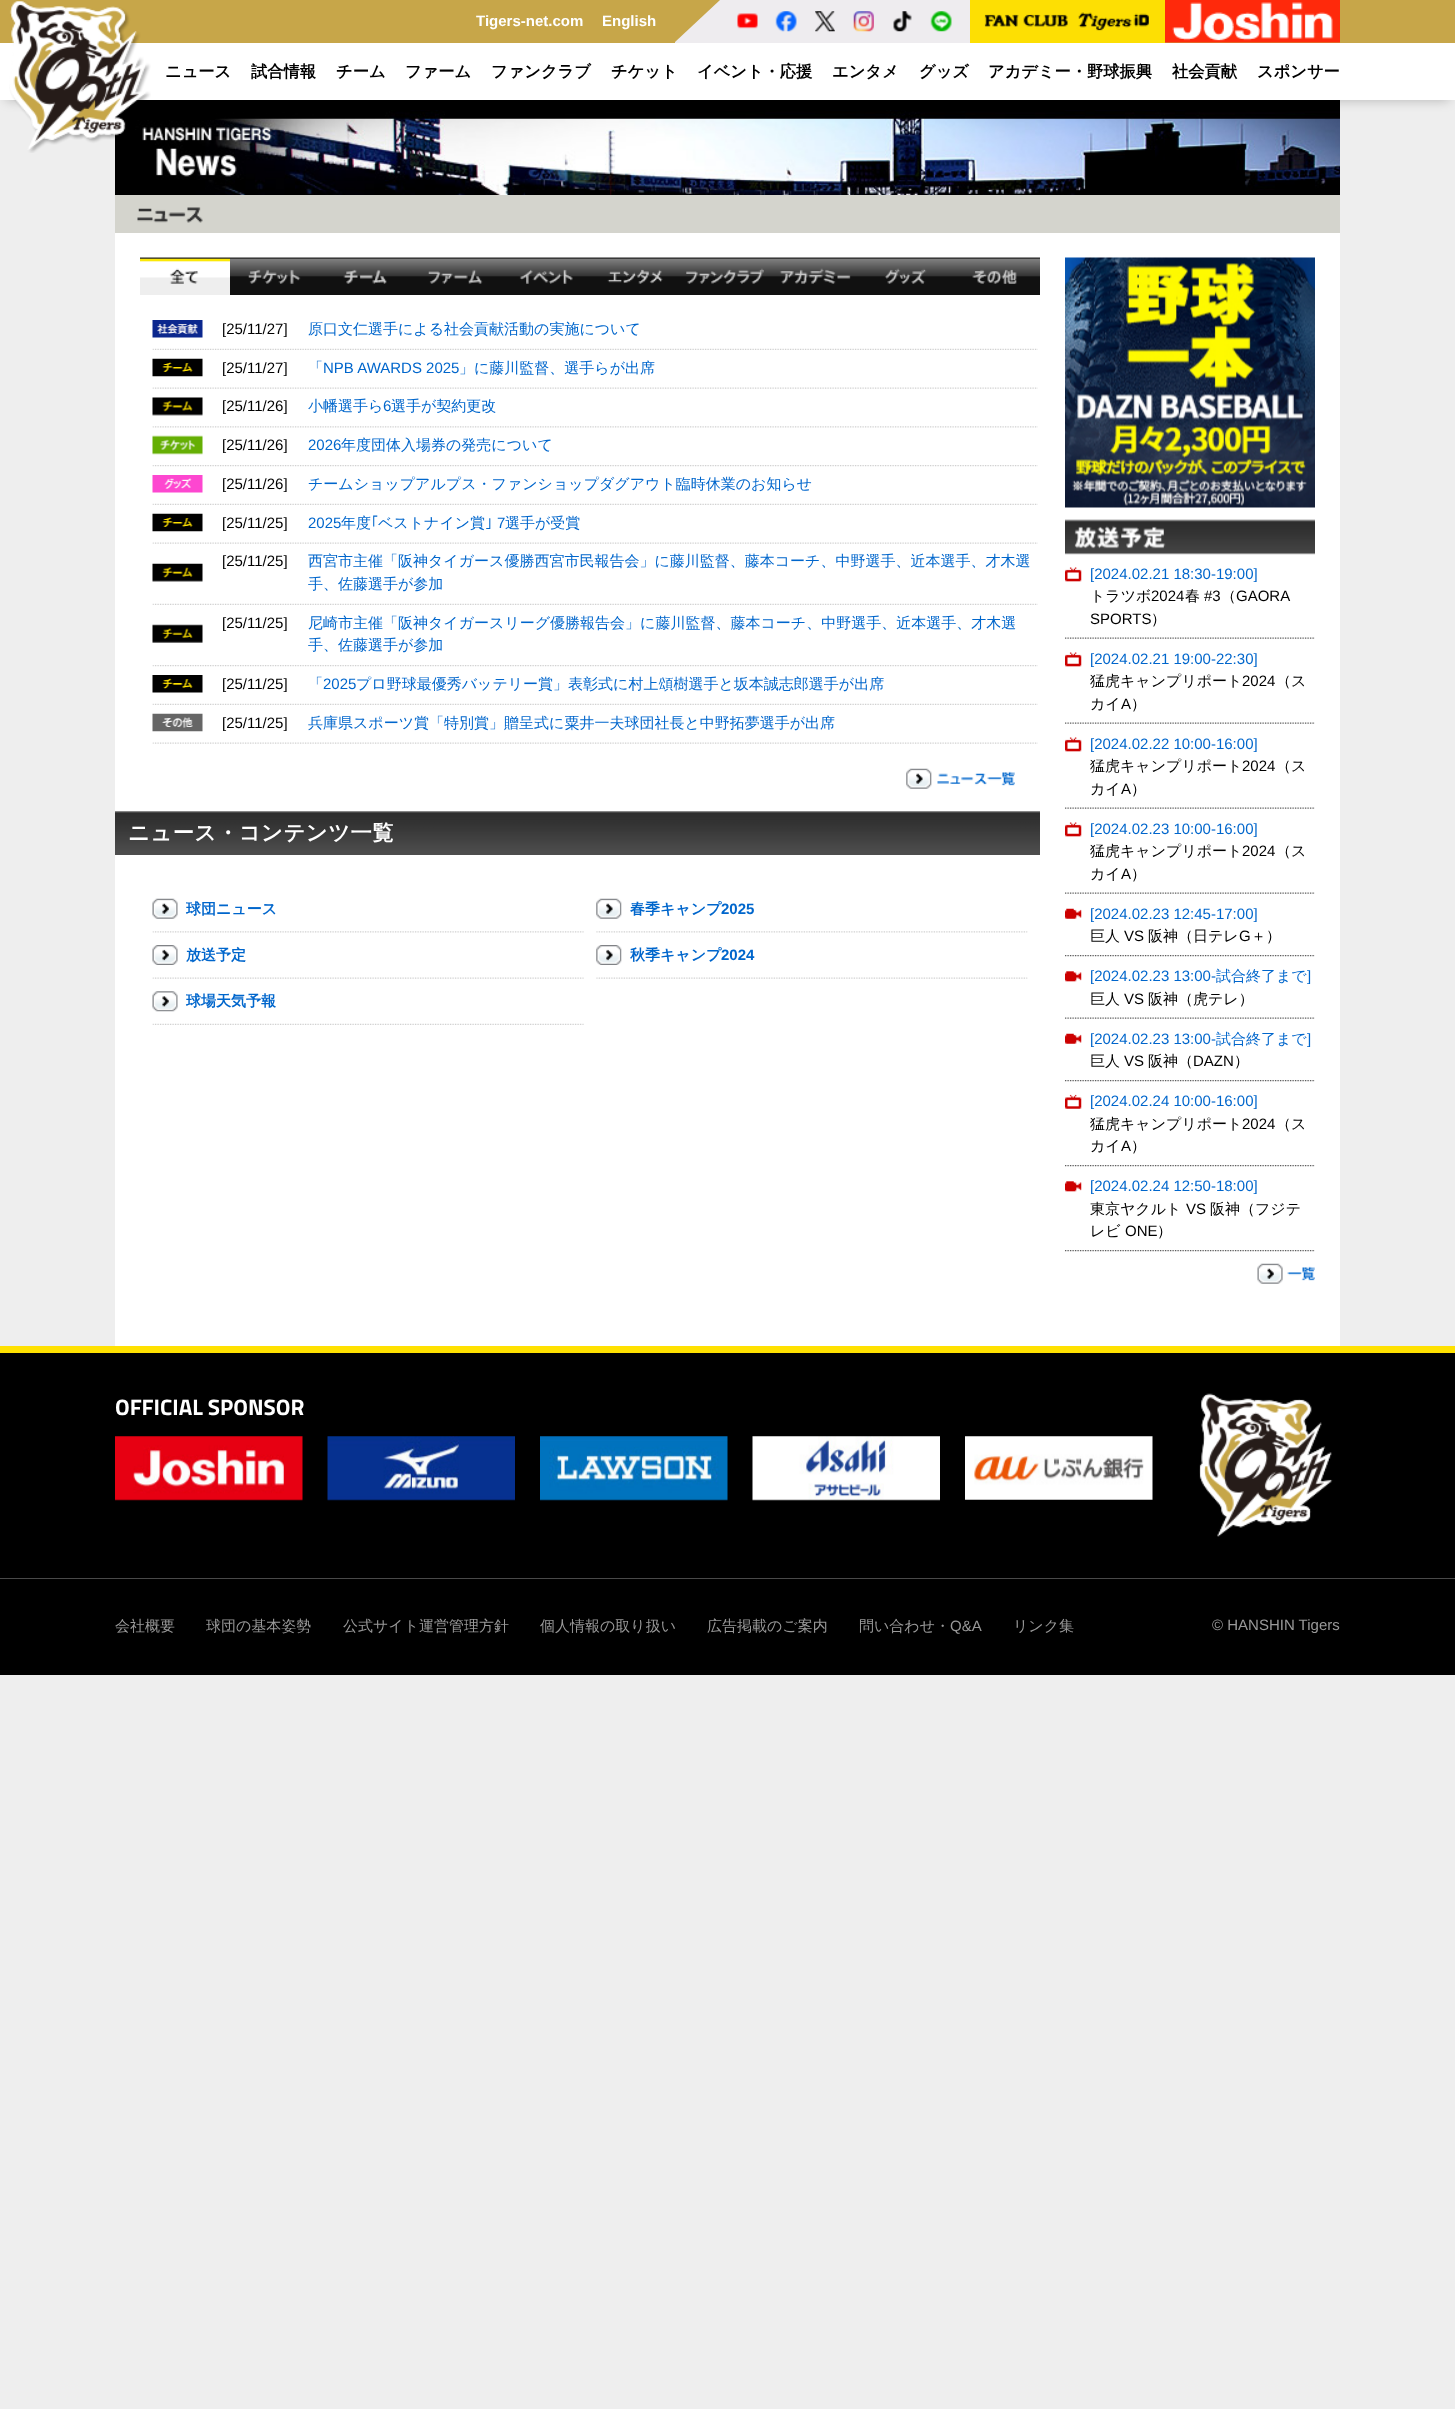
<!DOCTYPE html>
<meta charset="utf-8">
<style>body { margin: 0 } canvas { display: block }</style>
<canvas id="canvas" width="1455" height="2409"></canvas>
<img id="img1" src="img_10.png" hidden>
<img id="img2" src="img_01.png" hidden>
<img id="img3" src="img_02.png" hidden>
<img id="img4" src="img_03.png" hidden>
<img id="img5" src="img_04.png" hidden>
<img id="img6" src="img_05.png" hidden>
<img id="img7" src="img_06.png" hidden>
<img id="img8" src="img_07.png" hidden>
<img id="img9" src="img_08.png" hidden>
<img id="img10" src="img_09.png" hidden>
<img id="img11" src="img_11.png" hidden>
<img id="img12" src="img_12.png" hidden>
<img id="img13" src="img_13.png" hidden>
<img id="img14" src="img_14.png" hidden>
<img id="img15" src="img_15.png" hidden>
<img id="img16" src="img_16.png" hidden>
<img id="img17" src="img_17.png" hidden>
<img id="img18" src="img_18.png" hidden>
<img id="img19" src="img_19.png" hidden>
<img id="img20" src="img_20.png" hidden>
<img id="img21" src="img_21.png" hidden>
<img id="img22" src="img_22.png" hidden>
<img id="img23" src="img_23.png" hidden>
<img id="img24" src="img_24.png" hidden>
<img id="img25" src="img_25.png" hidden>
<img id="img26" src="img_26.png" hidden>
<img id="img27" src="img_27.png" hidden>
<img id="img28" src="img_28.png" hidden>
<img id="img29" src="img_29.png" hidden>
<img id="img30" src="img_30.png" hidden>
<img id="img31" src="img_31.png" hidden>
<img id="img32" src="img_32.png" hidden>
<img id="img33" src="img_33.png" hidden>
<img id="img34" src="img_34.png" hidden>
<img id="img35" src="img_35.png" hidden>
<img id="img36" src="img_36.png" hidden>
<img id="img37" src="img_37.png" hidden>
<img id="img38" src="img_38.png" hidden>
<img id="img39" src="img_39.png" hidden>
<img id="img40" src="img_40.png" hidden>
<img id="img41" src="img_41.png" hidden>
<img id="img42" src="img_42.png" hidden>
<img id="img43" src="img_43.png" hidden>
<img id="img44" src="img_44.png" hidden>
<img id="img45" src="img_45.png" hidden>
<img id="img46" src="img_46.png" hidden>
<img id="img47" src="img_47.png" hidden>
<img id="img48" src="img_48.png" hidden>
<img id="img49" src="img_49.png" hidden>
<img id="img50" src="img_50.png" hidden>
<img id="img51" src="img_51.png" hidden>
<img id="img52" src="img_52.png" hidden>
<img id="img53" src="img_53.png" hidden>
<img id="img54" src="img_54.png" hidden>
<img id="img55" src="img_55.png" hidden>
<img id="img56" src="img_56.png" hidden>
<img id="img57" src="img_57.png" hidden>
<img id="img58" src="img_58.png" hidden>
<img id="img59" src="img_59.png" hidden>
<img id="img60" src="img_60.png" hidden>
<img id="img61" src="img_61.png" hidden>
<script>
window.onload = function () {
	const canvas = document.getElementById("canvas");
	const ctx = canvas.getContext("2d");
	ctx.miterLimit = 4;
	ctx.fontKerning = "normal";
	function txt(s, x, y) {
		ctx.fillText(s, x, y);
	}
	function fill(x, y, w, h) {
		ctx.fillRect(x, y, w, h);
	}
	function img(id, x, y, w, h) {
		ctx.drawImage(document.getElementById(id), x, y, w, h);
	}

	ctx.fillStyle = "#EEEEEE";
	fill(0, 0, 1455, 2409);
	ctx.fillStyle = "#C7A649";
	fill(0, 0, 1455, 43);
	img("img1", 115, 100, 1225, 95);
	ctx.fillStyle = "rgba(0, 0, 0, 0.25)";
	ctx.filter = "blur(6px)";
	ctx.beginPath();
	ctx.rect(6, 55, 1443, 45);
	ctx.fill();
	ctx.filter = "none";
	ctx.fillStyle = "#FFFFFF";
	fill(0, 43, 1455, 57);
	img("img2", 9, 1, 142, 152);
	ctx.fillStyle = "#EEECEF";
	fill(675, 0, 295, 43);
	ctx.fillStyle = "#C7A649";
	ctx.beginPath();
	ctx.moveTo(675, 0);
	ctx.lineTo(675, 42);
	ctx.lineTo(720, 0);
	ctx.closePath();
	ctx.fill();
	img("img3", 737, 13, 21, 16);
	img("img4", 775, 11, 22, 21);
	img("img5", 815, 11, 20, 21);
	img("img6", 853, 11, 21, 21);
	img("img7", 893, 11, 19, 21);
	img("img8", 930, 11, 22, 21);
	ctx.fillStyle = "#FDDF03";
	fill(970, 0, 195, 43);
	img("img9", 984, 12, 165, 19);
	img("img10", 1165, 0, 175, 43);
	ctx.fillStyle = "#FFFFFF";
	fill(115, 233, 1225, 1113);
	ctx.fillStyle = "#D4D4CD";
	fill(115, 195, 1225, 38);
	img("img11", 137, 207, 66, 16);
	img("img12", 140, 257, 90, 38);
	img("img13", 230, 257, 90, 38);
	img("img14", 320, 257, 90, 38);
	img("img15", 410, 257, 90, 38);
	img("img16", 500, 257, 90, 38);
	img("img17", 590, 257, 90, 38);
	img("img18", 680, 257, 90, 38);
	img("img19", 770, 257, 90, 38);
	img("img20", 860, 257, 90, 38);
	img("img21", 950, 257, 90, 38);
	img("img22", 152, 348, 886, 2);
	img("img23", 152, 320, 51, 18);
	img("img24", 152, 387, 886, 2);
	img("img25", 152, 358, 51, 19);
	img("img26", 152, 426, 886, 2);
	img("img27", 152, 397, 51, 19);
	img("img28", 152, 465, 886, 2);
	img("img29", 152, 435, 51, 20);
	img("img22", 152, 503, 886, 2);
	img("img30", 152, 475, 51, 18);
	img("img24", 152, 542, 886, 2);
	img("img25", 152, 513, 51, 19);
	img("img22", 152, 603, 886, 2);
	img("img31", 152, 563, 51, 19);
	img("img28", 152, 665, 886, 2);
	img("img32", 152, 624, 51, 19);
	img("img22", 152, 703, 886, 2);
	img("img33", 152, 675, 51, 18);
	img("img24", 152, 742, 886, 2);
	img("img34", 152, 713, 51, 19);
	img("img35", 906, 768, 109, 21);
	img("img36", 115, 811, 925, 44);
	img("img37", 152, 931, 432, 2);
	img("img38", 152, 898, 26, 21);
	img("img39", 152, 977, 432, 2);
	img("img40", 152, 945, 26, 20);
	img("img41", 152, 1023, 432, 2);
	img("img42", 152, 991, 26, 21);
	img("img43", 596, 931, 432, 2);
	img("img44", 596, 898, 26, 21);
	img("img45", 596, 977, 432, 2);
	img("img46", 596, 945, 26, 20);
	img("img47", 1065, 257, 250, 251);
	img("img48", 1065, 519, 250, 36);
	img("img49", 1065, 637, 250, 2);
	img("img50", 1065, 567, 17, 15);
	img("img49", 1065, 722, 250, 2);
	img("img50", 1065, 652, 17, 15);
	img("img49", 1065, 807, 250, 2);
	img("img50", 1065, 737, 17, 15);
	img("img49", 1065, 892, 250, 2);
	img("img50", 1065, 822, 17, 15);
	img("img51", 1065, 955, 250, 2);
	img("img52", 1065, 908, 17, 11);
	img("img49", 1065, 1017, 250, 2);
	img("img53", 1065, 971, 17, 11);
	img("img51", 1065, 1080, 250, 2);
	img("img52", 1065, 1033, 17, 11);
	img("img51", 1065, 1165, 250, 2);
	img("img54", 1065, 1094, 17, 15);
	img("img51", 1065, 1250, 250, 2);
	img("img53", 1065, 1181, 17, 11);
	img("img55", 1257, 1263, 58, 21);
	ctx.fillStyle = "#000000";
	fill(0, 1353, 1455, 322);
	ctx.fillStyle = "#FFE100";
	fill(0, 1346, 1455, 7);
	img("img56", 115, 1436, 188, 65);
	img("img57", 327, 1436, 188, 65);
	img("img58", 540, 1436, 188, 65);
	img("img59", 752, 1436, 188, 65);
	img("img60", 965, 1436, 188, 64);
	img("img61", 1199, 1393, 134, 144);
	ctx.fillStyle = "#494949";
	fill(0, 1578, 1455, 1);
	ctx.font = "bold 15px Liberation Sans";
	ctx.fillStyle = "#FFFFFF";
	txt("Tigers-net.com", 476, 26);
	txt("English", 602, 26);
	ctx.font = "bold 16.25px WenQuanYi Zen Hei";
	ctx.fillStyle = "#000000";
	txt("ニュース", 165, 77);
	txt("試合情報", 251, 77);
	txt("チーム", 336, 77);
	txt("ファーム", 405, 77);
	txt("ファンクラブ", 491, 77);
	txt("チケット", 611, 77);
	txt("イベント・応援", 697, 77);
	txt("エンタメ", 832, 77);
	txt("グッズ", 919, 77);
	txt("アカデミー・野球振興", 988, 77);
	txt("社会貢献", 1172, 77);
	txt("スポンサー", 1257, 77);
	ctx.font = "15px Liberation Sans";
	txt("[25/11/27]", 222, 334);
	ctx.font = "500 15px WenQuanYi Zen Hei";
	ctx.fillStyle = "#0066CC";
	txt("原口文仁選手による社会貢献活動の実施について", 308, 334);
	ctx.font = "15px Liberation Sans";
	ctx.fillStyle = "#000000";
	txt("[25/11/27]", 222, 373);
	ctx.font = "500 15px WenQuanYi Zen Hei";
	ctx.fillStyle = "#0066CC";
	txt("「", 308, 373);
	ctx.font = "15px Liberation Sans";
	txt("NPB AWARDS 2025", 323, 373);
	ctx.font = "500 15px WenQuanYi Zen Hei";
	txt("」に藤川監督、選手らが出席", 459, 373);
	ctx.font = "15px Liberation Sans";
	ctx.fillStyle = "#000000";
	txt("[25/11/26]", 222, 411);
	ctx.font = "500 15px WenQuanYi Zen Hei";
	ctx.fillStyle = "#0066CC";
	txt("小幡選手ら", 308, 411);
	ctx.font = "15px Liberation Sans";
	txt("6", 383, 411);
	ctx.font = "500 15px WenQuanYi Zen Hei";
	txt("選手が契約更改", 391, 411);
	ctx.font = "15px Liberation Sans";
	ctx.fillStyle = "#000000";
	txt("[25/11/26]", 222, 450);
	ctx.fillStyle = "#0066CC";
	txt("2026", 308, 450);
	ctx.font = "500 15px WenQuanYi Zen Hei";
	txt("年度団体入場券の発売について", 341, 450);
	ctx.font = "15px Liberation Sans";
	ctx.fillStyle = "#000000";
	txt("[25/11/26]", 222, 489);
	ctx.font = "500 15px WenQuanYi Zen Hei";
	ctx.fillStyle = "#0066CC";
	txt("チームショップアルプス・ファンショップダグアウト臨時休業のお知らせ", 308, 489);
	ctx.font = "15px Liberation Sans";
	ctx.fillStyle = "#000000";
	txt("[25/11/25]", 222, 528);
	ctx.fillStyle = "#0066CC";
	txt("2025", 308, 528);
	ctx.font = "500 15px WenQuanYi Zen Hei";
	txt("年度", 341, 528);
	ctx.font = "15px IPAPGothic";
	txt("｢", 371, 528);
	ctx.font = "500 15px WenQuanYi Zen Hei";
	txt("ベストナイン賞", 378, 528);
	ctx.font = "15px IPAPGothic";
	txt("｣", 485, 528);
	ctx.font = "15px Liberation Sans";
	txt("7", 497, 528);
	ctx.font = "500 15px WenQuanYi Zen Hei";
	txt("選手が受賞", 505, 528);
	ctx.font = "15px Liberation Sans";
	ctx.fillStyle = "#000000";
	txt("[25/11/25]", 222, 566);
	ctx.font = "500 15px WenQuanYi Zen Hei";
	ctx.fillStyle = "#0066CC";
	txt("西宮市主催「阪神タイガース優勝西宮市民報告会」に藤川監督、藤本コーチ、中野選手、近本選手、才木選", 308, 566);
	txt("手、佐藤選手が参加", 308, 589);
	ctx.font = "15px Liberation Sans";
	ctx.fillStyle = "#000000";
	txt("[25/11/25]", 222, 628);
	ctx.font = "500 15px WenQuanYi Zen Hei";
	ctx.fillStyle = "#0066CC";
	txt("尼崎市主催「阪神タイガースリーグ優勝報告会」に藤川監督、藤本コーチ、中野選手、近本選手、才木選", 308, 628);
	txt("手、佐藤選手が参加", 308, 650);
	ctx.font = "15px Liberation Sans";
	ctx.fillStyle = "#000000";
	txt("[25/11/25]", 222, 689);
	ctx.font = "500 15px WenQuanYi Zen Hei";
	ctx.fillStyle = "#0066CC";
	txt("「", 308, 689);
	ctx.font = "15px Liberation Sans";
	txt("2025", 323, 689);
	ctx.font = "500 15px WenQuanYi Zen Hei";
	txt("プロ野球最優秀バッテリー賞」表彰式に村上頌樹選手と坂本誠志郎選手が出席", 356, 689);
	ctx.font = "15px Liberation Sans";
	ctx.fillStyle = "#000000";
	txt("[25/11/25]", 222, 728);
	ctx.font = "500 15px WenQuanYi Zen Hei";
	ctx.fillStyle = "#0066CC";
	txt("兵庫県スポーツ賞「特別賞」贈呈式に粟井一夫球団社長と中野拓夢選手が出席", 308, 728);
	ctx.letterSpacing = "0.6px";
	ctx.font = "bold 21.25px WenQuanYi Zen Hei";
	ctx.fillStyle = "#FFFFFF";
	txt("ニュース・コンテンツ一覧", 128, 840);
	ctx.letterSpacing = "0px";
	ctx.font = "bold 15px WenQuanYi Zen Hei";
	ctx.fillStyle = "#0066CC";
	txt("球団ニュース", 186, 914);
	txt("放送予定", 186, 960);
	txt("球場天気予報", 186, 1006);
	txt("春季キャンプ", 630, 914);
	ctx.font = "bold 15px Liberation Sans";
	txt("2025", 721, 914);
	ctx.font = "bold 15px WenQuanYi Zen Hei";
	txt("秋季キャンプ", 630, 960);
	ctx.font = "bold 15px Liberation Sans";
	txt("2024", 721, 960);
	ctx.font = "15px Liberation Sans";
	txt("[2024.02.21 18:30-19:00]", 1090, 579);
	ctx.font = "500 15px WenQuanYi Zen Hei";
	ctx.fillStyle = "#000000";
	txt("トラツボ", 1090, 601);
	ctx.font = "15px Liberation Sans";
	txt("2024", 1151, 601);
	ctx.font = "500 15px WenQuanYi Zen Hei";
	txt("春", 1185, 601);
	ctx.font = "15px Liberation Sans";
	txt("#3", 1204, 601);
	ctx.font = "500 15px WenQuanYi Zen Hei";
	txt("（", 1221, 601);
	ctx.font = "15px Liberation Sans";
	txt("GAORA", 1236, 601);
	txt("SPORTS", 1090, 624);
	ctx.font = "500 15px WenQuanYi Zen Hei";
	txt("）", 1151, 624);
	ctx.font = "15px Liberation Sans";
	ctx.fillStyle = "#0066CC";
	txt("[2024.02.21 19:00-22:30]", 1090, 664);
	ctx.font = "500 15px WenQuanYi Zen Hei";
	ctx.fillStyle = "#000000";
	txt("猛虎キャンプリポート", 1090, 686);
	ctx.font = "15px Liberation Sans";
	txt("2024", 1242, 686);
	ctx.font = "500 15px WenQuanYi Zen Hei";
	txt("（ス", 1276, 686);
	txt("カイ", 1090, 709);
	ctx.font = "15px Liberation Sans";
	txt("A", 1121, 709);
	ctx.font = "500 15px WenQuanYi Zen Hei";
	txt("）", 1131, 709);
	ctx.font = "15px Liberation Sans";
	ctx.fillStyle = "#0066CC";
	txt("[2024.02.22 10:00-16:00]", 1090, 749);
	ctx.font = "500 15px WenQuanYi Zen Hei";
	ctx.fillStyle = "#000000";
	txt("猛虎キャンプリポート", 1090, 771);
	ctx.font = "15px Liberation Sans";
	txt("2024", 1242, 771);
	ctx.font = "500 15px WenQuanYi Zen Hei";
	txt("（ス", 1276, 771);
	txt("カイ", 1090, 794);
	ctx.font = "15px Liberation Sans";
	txt("A", 1121, 794);
	ctx.font = "500 15px WenQuanYi Zen Hei";
	txt("）", 1131, 794);
	ctx.font = "15px Liberation Sans";
	ctx.fillStyle = "#0066CC";
	txt("[2024.02.23 10:00-16:00]", 1090, 834);
	ctx.font = "500 15px WenQuanYi Zen Hei";
	ctx.fillStyle = "#000000";
	txt("猛虎キャンプリポート", 1090, 856);
	ctx.font = "15px Liberation Sans";
	txt("2024", 1242, 856);
	ctx.font = "500 15px WenQuanYi Zen Hei";
	txt("（ス", 1276, 856);
	txt("カイ", 1090, 879);
	ctx.font = "15px Liberation Sans";
	txt("A", 1121, 879);
	ctx.font = "500 15px WenQuanYi Zen Hei";
	txt("）", 1131, 879);
	ctx.font = "15px Liberation Sans";
	ctx.fillStyle = "#0066CC";
	txt("[2024.02.23 12:45-17:00]", 1090, 919);
	ctx.font = "500 15px WenQuanYi Zen Hei";
	ctx.fillStyle = "#000000";
	txt("巨人", 1090, 941);
	ctx.font = "15px Liberation Sans";
	txt("VS", 1124, 941);
	ctx.font = "500 15px WenQuanYi Zen Hei";
	txt("阪神（日テレ", 1148, 941);
	ctx.font = "15px Liberation Sans";
	txt("G", 1239, 941);
	ctx.font = "500 15px WenQuanYi Zen Hei";
	txt("＋）", 1251, 941);
	ctx.font = "15px Liberation Sans";
	ctx.fillStyle = "#0066CC";
	txt("[2024.02.23 13:00-", 1090, 981);
	ctx.font = "500 15px WenQuanYi Zen Hei";
	txt("試合終了まで", 1216, 981);
	ctx.font = "15px Liberation Sans";
	txt("]", 1307, 981);
	ctx.font = "500 15px WenQuanYi Zen Hei";
	ctx.fillStyle = "#000000";
	txt("巨人", 1090, 1004);
	ctx.font = "15px Liberation Sans";
	txt("VS", 1124, 1004);
	ctx.font = "500 15px WenQuanYi Zen Hei";
	txt("阪神（虎テレ）", 1148, 1004);
	ctx.font = "15px Liberation Sans";
	ctx.fillStyle = "#0066CC";
	txt("[2024.02.23 13:00-", 1090, 1044);
	ctx.font = "500 15px WenQuanYi Zen Hei";
	txt("試合終了まで", 1216, 1044);
	ctx.font = "15px Liberation Sans";
	txt("]", 1307, 1044);
	ctx.font = "500 15px WenQuanYi Zen Hei";
	ctx.fillStyle = "#000000";
	txt("巨人", 1090, 1066);
	ctx.font = "15px Liberation Sans";
	txt("VS", 1124, 1066);
	ctx.font = "500 15px WenQuanYi Zen Hei";
	txt("阪神（", 1148, 1066);
	ctx.font = "15px Liberation Sans";
	txt("DAZN", 1193, 1066);
	ctx.font = "500 15px WenQuanYi Zen Hei";
	txt("）", 1234, 1066);
	ctx.font = "15px Liberation Sans";
	ctx.fillStyle = "#0066CC";
	txt("[2024.02.24 10:00-16:00]", 1090, 1106);
	ctx.font = "500 15px WenQuanYi Zen Hei";
	ctx.fillStyle = "#000000";
	txt("猛虎キャンプリポート", 1090, 1129);
	ctx.font = "15px Liberation Sans";
	txt("2024", 1242, 1129);
	ctx.font = "500 15px WenQuanYi Zen Hei";
	txt("（ス", 1276, 1129);
	txt("カイ", 1090, 1151);
	ctx.font = "15px Liberation Sans";
	txt("A", 1121, 1151);
	ctx.font = "500 15px WenQuanYi Zen Hei";
	txt("）", 1131, 1151);
	ctx.font = "15px Liberation Sans";
	ctx.fillStyle = "#0066CC";
	txt("[2024.02.24 12:50-18:00]", 1090, 1191);
	ctx.font = "500 15px WenQuanYi Zen Hei";
	ctx.fillStyle = "#000000";
	txt("東京ヤクルト", 1090, 1214);
	ctx.font = "15px Liberation Sans";
	txt("VS", 1186, 1214);
	ctx.font = "500 15px WenQuanYi Zen Hei";
	txt("阪神（フジテ", 1210, 1214);
	txt("レビ", 1090, 1236);
	ctx.font = "15px Liberation Sans";
	txt("ONE", 1125, 1236);
	ctx.font = "500 15px WenQuanYi Zen Hei";
	txt("）", 1157, 1236);
	ctx.font = "bold 22.5px Titillium Web";
	ctx.fillStyle = "#FFFFFF";
	txt("OFFICIAL SPONSOR", 115, 1415);
	ctx.font = "500 15px WenQuanYi Zen Hei";
	ctx.fillStyle = "#999999";
	txt("会社概要", 115, 1631);
	txt("球団の基本姿勢", 206, 1631);
	txt("公式サイト運営管理方針", 343, 1631);
	txt("個人情報の取り扱い", 540, 1631);
	txt("広告掲載のご案内", 707, 1631);
	txt("問い合わせ・", 859, 1631);
	ctx.font = "15px Liberation Sans";
	txt("Q&A", 950, 1631);
	ctx.font = "500 15px WenQuanYi Zen Hei";
	txt("リンク集", 1013, 1631);
	ctx.font = "15px Liberation Sans";
	txt("© HANSHIN Tigers", 1212, 1630);
};
</script>
